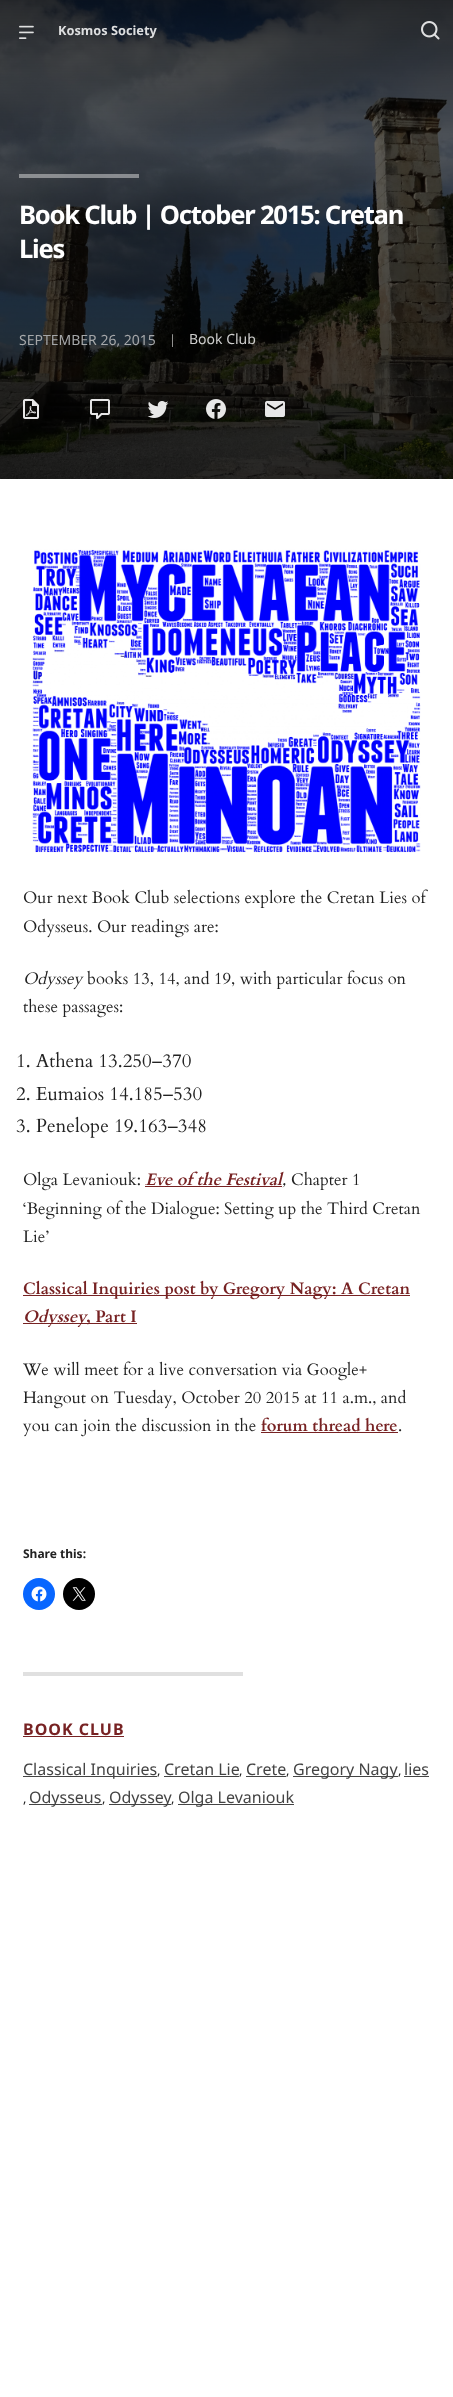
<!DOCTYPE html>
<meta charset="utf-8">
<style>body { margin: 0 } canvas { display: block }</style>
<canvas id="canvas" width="453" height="2397"></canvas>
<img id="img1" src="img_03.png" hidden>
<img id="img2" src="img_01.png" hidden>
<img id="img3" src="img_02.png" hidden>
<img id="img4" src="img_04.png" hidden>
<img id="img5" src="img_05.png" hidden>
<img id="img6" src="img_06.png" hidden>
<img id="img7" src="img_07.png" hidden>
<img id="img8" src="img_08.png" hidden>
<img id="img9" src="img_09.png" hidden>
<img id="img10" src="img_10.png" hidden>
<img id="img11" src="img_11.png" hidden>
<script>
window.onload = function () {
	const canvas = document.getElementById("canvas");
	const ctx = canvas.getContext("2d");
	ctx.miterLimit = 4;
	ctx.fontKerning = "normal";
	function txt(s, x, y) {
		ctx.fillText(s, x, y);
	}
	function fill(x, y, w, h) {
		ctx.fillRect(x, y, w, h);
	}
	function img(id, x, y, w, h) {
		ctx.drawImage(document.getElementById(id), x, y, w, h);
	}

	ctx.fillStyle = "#FFFFFF";
	fill(0, 0, 453, 2397);
	img("img1", 0, 0, 453, 479);
	img("img2", 19, 25, 15, 14);
	img("img3", 421, 21, 19, 19);
	ctx.fillStyle = "rgba(224, 224, 224, 0.5)";
	fill(19, 174, 120, 4);
	img("img4", 23, 399, 16, 20);
	img("img5", 90, 399, 20, 20);
	img("img6", 147, 401, 22, 17);
	img("img7", 206, 399, 20, 20);
	img("img8", 265, 401, 20, 16);
	img("img9", 32, 549, 389, 304);
	ctx.fillStyle = "#772223";
	fill(145, 1186, 137, 1);
	fill(23, 1295, 387, 1);
	fill(23, 1323, 63, 1);
	fill(86, 1323, 51, 1);
	fill(261, 1432, 137, 1);
	ctx.fillStyle = "#0866FF";
	ctx.beginPath();
	ctx.arc(39, 1594, 16, 0, Math.PI * 2);
	ctx.fill();
	img("img10", 31, 1586, 16, 16);
	ctx.fillStyle = "#000000";
	ctx.beginPath();
	ctx.arc(79, 1594, 16, 0, Math.PI * 2);
	ctx.fill();
	img("img11", 72, 1587, 14, 14);
	ctx.fillStyle = "#E0E0E0";
	fill(23, 1672, 220, 4);
	ctx.fillStyle = "#772223";
	fill(23, 1736, 101, 1);
	ctx.fillStyle = "#444444";
	fill(23, 1776, 134, 1);
	fill(164, 1776, 75, 1);
	fill(246, 1776, 40, 1);
	fill(293, 1776, 105, 1);
	fill(404, 1776, 25, 1);
	fill(29, 1804, 73, 1);
	fill(109, 1804, 62, 1);
	fill(178, 1804, 116, 1);
	ctx.font = "bold 12.75px Noto Sans";
	ctx.fillStyle = "#DEDFE0";
	txt("Kosmos Society", 58, 35);
	ctx.letterSpacing = "-1.25px";
	ctx.font = "bold 25.6px Noto Sans";
	ctx.fillStyle = "#FFFFFF";
	txt("Book Club | October 2015: Cretan", 19, 224);
	txt("Lies", 19, 258);
	ctx.letterSpacing = "0px";
	ctx.font = "14px Noto Sans";
	ctx.fillStyle = "#A5A7A9";
	txt("SEPTEMBER 26, 2015", 19, 345);
	ctx.font = "12.75px Noto Sans";
	ctx.fillStyle = "#9B9B9A";
	txt("|", 169, 344);
	ctx.font = "14px Noto Sans";
	ctx.fillStyle = "#CECECD";
	txt("Book Club", 189, 344);
	ctx.font = "16.6px Cardo";
	ctx.fillStyle = "#222222";
	txt("Our next Book Club selections explore the Cretan Lies of", 23, 903);
	txt("Odysseus. Our readings are:", 23, 932);
	ctx.font = "italic 16.6px Cardo";
	txt("Odyssey", 23, 984);
	ctx.font = "16.6px Cardo";
	txt("books 13, 14, and 19, with particular focus on", 87, 984);
	txt("these passages:", 23, 1012);
	ctx.font = "19px Cardo";
	txt("1. Athena 13.250–370", 16, 1067);
	txt("2. Eumaios 14.185–530", 16, 1100);
	txt("3. Penelope 19.163–348", 16, 1132);
	ctx.font = "16.6px Cardo";
	txt("Olga Levaniouk:", 23, 1185);
	ctx.font = "italic bold 16.6px Cardo";
	ctx.fillStyle = "#772223";
	txt("Eve of the Festival", 145, 1185);
	ctx.font = "16.6px Cardo";
	ctx.fillStyle = "#222222";
	txt("Chapter 1", 291, 1185);
	ctx.font = "italic 16.6px Cardo";
	txt(",", 282, 1185);
	ctx.font = "16.6px Cardo";
	txt("‘Beginning of the Dialogue: Setting up the Third Cretan", 23, 1214);
	txt("Lie’", 23, 1242);
	ctx.font = "bold 16.6px Cardo";
	ctx.fillStyle = "#772223";
	txt("Classical Inquiries post by Gregory Nagy: A Cretan", 23, 1294);
	ctx.font = "italic bold 16.6px Cardo";
	txt("Odyssey", 23, 1322);
	ctx.font = "bold 16.6px Cardo";
	txt(", Part I", 86, 1322);
	ctx.font = "16.6px Cardo";
	ctx.fillStyle = "#222222";
	txt("We will meet for a live conversation via Google+", 23, 1375);
	txt("Hangout on Tuesday, October 20 2015 at 11 a.m., and", 23, 1403);
	txt("you can join the discussion in the", 23, 1431);
	ctx.font = "bold 16.6px Cardo";
	ctx.fillStyle = "#772223";
	txt("forum thread here", 261, 1431);
	ctx.font = "16.6px Cardo";
	ctx.fillStyle = "#222222";
	txt(".", 398, 1431);
	ctx.font = "bold 12px Noto Sans";
	txt("Share this:", 23, 1558);
	ctx.letterSpacing = "1px";
	ctx.font = "bold 16px Noto Sans";
	ctx.fillStyle = "#772223";
	txt("BOOK CLUB", 23, 1735);
	ctx.letterSpacing = "0px";
	ctx.font = "16px Noto Sans";
	ctx.fillStyle = "#444444";
	txt("Classical Inquiries", 23, 1775);
	ctx.font = "12.75px Noto Sans";
	ctx.fillStyle = "#222222";
	txt(",", 157, 1775);
	ctx.font = "16px Noto Sans";
	ctx.fillStyle = "#444444";
	txt("Cretan Lie", 164, 1775);
	ctx.font = "12.75px Noto Sans";
	ctx.fillStyle = "#222222";
	txt(",", 239, 1775);
	ctx.font = "16px Noto Sans";
	ctx.fillStyle = "#444444";
	txt("Crete", 246, 1775);
	ctx.font = "12.75px Noto Sans";
	ctx.fillStyle = "#222222";
	txt(",", 286, 1775);
	ctx.font = "16px Noto Sans";
	ctx.fillStyle = "#444444";
	txt("Gregory Nagy", 293, 1775);
	ctx.font = "12.75px Noto Sans";
	ctx.fillStyle = "#222222";
	txt(",", 398, 1775);
	ctx.font = "16px Noto Sans";
	ctx.fillStyle = "#444444";
	txt("lies", 404, 1775);
	ctx.font = "12.75px Noto Sans";
	ctx.fillStyle = "#222222";
	txt(",", 23, 1803);
	ctx.font = "16px Noto Sans";
	ctx.fillStyle = "#444444";
	txt("Odysseus", 29, 1803);
	ctx.font = "12.75px Noto Sans";
	ctx.fillStyle = "#222222";
	txt(",", 102, 1803);
	ctx.font = "16px Noto Sans";
	ctx.fillStyle = "#444444";
	txt("Odyssey", 109, 1803);
	ctx.font = "12.75px Noto Sans";
	ctx.fillStyle = "#222222";
	txt(",", 171, 1803);
	ctx.font = "16px Noto Sans";
	ctx.fillStyle = "#444444";
	txt("Olga Levaniouk", 178, 1803);
};
</script>
